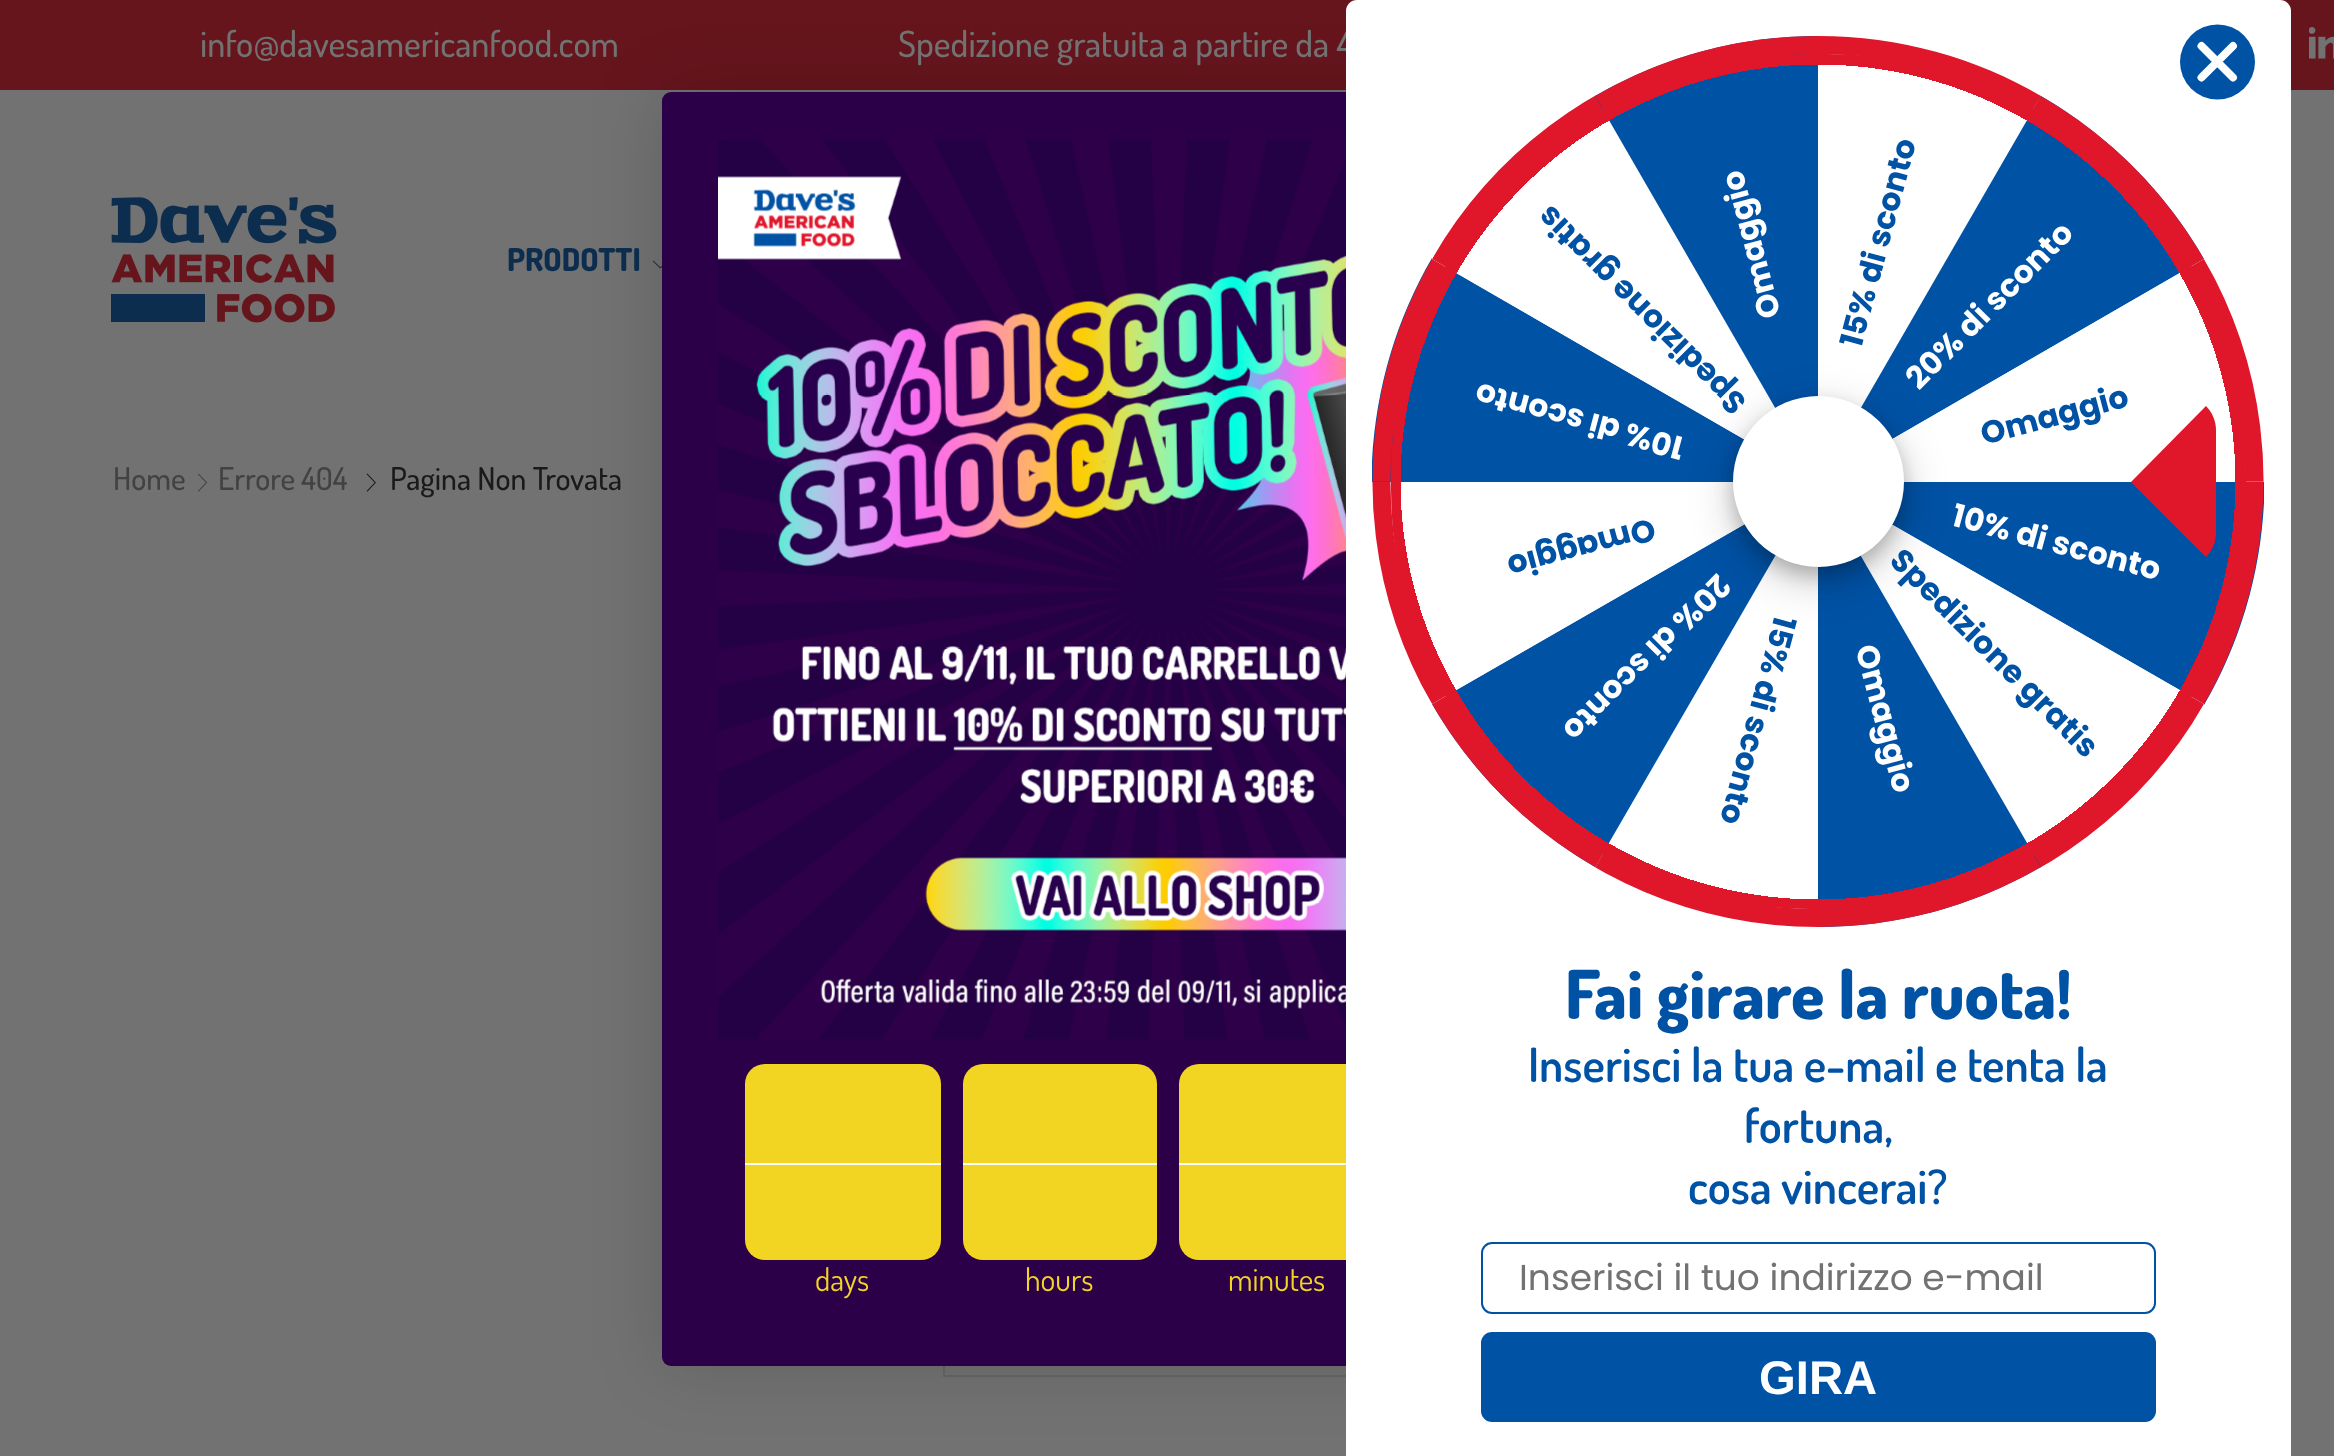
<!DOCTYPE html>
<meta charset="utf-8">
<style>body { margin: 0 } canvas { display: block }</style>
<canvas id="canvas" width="2334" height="1456"></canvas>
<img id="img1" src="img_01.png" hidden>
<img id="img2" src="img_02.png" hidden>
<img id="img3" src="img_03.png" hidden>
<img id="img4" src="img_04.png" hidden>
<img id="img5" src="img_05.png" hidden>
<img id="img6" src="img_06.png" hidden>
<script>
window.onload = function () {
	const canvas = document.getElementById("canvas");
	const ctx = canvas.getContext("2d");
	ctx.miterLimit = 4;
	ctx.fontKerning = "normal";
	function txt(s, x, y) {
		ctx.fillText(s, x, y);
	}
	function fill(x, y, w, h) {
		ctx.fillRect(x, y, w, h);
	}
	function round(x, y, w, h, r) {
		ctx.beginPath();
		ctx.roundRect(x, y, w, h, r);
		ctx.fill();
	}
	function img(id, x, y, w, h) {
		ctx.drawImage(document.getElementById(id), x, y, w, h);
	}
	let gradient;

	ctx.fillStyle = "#727272";
	fill(0, 0, 2334, 1456);
	ctx.fillStyle = "#66151D";
	fill(0, 0, 2334, 90);
	img("img1", 2309, 27, 25, 32);
	img("img2", 111, 197, 226, 126);
	img("img3", 653, 260, 9, 9);
	img("img4", 198, 473, 9, 19);
	img("img5", 366, 473, 10, 19);
	ctx.strokeStyle = "#666666";
	ctx.lineWidth = 2;
	ctx.strokeRect(944, 1295, 448, 81);
	ctx.fillStyle = "rgba(0, 0, 0, 0.15)";
	ctx.filter = "blur(34px)";
	ctx.beginPath();
	ctx.roundRect(662, 92, 1012, 1274, 9);
	ctx.fill();
	ctx.filter = "none";
	ctx.fillStyle = "#2C0048";
	round(662, 92, 1012, 1274, 9);
	img("img6", 718, 140, 628, 899);
	ctx.fillStyle = "#F2D522";
	ctx.beginPath();
	ctx.roundRect(745, 1064, 196, 99, [20, 20, 0, 0]);
	ctx.fill();
	ctx.beginPath();
	ctx.roundRect(745, 1163, 196, 97, [0, 0, 20, 20]);
	ctx.fill();
	ctx.fillStyle = "#FFFFFF";
	fill(745, 1163, 196, 2);
	ctx.fillStyle = "#F2D522";
	ctx.beginPath();
	ctx.roundRect(963, 1064, 194, 99, [20, 20, 0, 0]);
	ctx.fill();
	ctx.beginPath();
	ctx.roundRect(963, 1163, 194, 97, [0, 0, 20, 20]);
	ctx.fill();
	ctx.fillStyle = "#FFFFFF";
	fill(963, 1163, 194, 2);
	ctx.fillStyle = "#F2D522";
	ctx.beginPath();
	ctx.roundRect(1179, 1064, 194, 99, [20, 20, 0, 0]);
	ctx.fill();
	ctx.beginPath();
	ctx.roundRect(1179, 1163, 194, 97, [0, 0, 20, 20]);
	ctx.fill();
	ctx.fillStyle = "#FFFFFF";
	fill(1179, 1163, 167, 2);
	ctx.font = "500 36px Dosis";
	ctx.fillStyle = "#727272";
	txt("info@davesamericanfood.com", 200, 57);
	txt("Spedizione gratuita a partire da 4", 898, 57);
	ctx.font = "800 31.5px Dosis";
	ctx.fillStyle = "#0C2D4E";
	txt("PRODOTTI", 507, 271);
	ctx.font = "500 31.5px Dosis";
	ctx.fillStyle = "#424242";
	txt("Home", 113, 490);
	txt("Errore 404", 218, 490);
	ctx.fillStyle = "#1A1A1A";
	txt("Pagina Non Trovata", 390, 490);
	ctx.fillStyle = "#FFFFFF";
	round(1346, 0, 945, 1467, 11);
	ctx.fillStyle = "#E0162B";
	ctx.beginPath();
	ctx.moveTo(1818, 36);
	ctx.lineTo(1818, 54);
	ctx.bezierCurveTo(1893, 54, 1967, 74, 2032, 111);
	ctx.lineTo(2041, 96);
	ctx.bezierCurveTo(1976, 58, 1900, 36, 1818, 36);
	ctx.closePath();
	ctx.fill();
	ctx.font = "bold 31.5px Poppins";
	ctx.fillStyle = "#0052A5";
	ctx.save();
	ctx.translate(1861, 349);
	ctx.rotate(-75 * Math.PI / 180);
	ctx.fillText("15% di sconto", 0, 0);
	ctx.restore();
	ctx.beginPath();
	ctx.moveTo(2041, 96);
	ctx.lineTo(1818, 482);
	ctx.lineTo(2204, 259);
	ctx.bezierCurveTo(2166, 193, 2111, 137, 2041, 96);
	ctx.closePath();
	ctx.fill();
	ctx.save();
	ctx.beginPath();
	ctx.moveTo(1818, 481.5);
	ctx.lineTo(2041, 95.5);
	ctx.lineTo(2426.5, 318.5);
	ctx.lineTo(2204, 259);
	ctx.closePath();
	ctx.clip();
	ctx.beginPath();
	ctx.moveTo(2036, 103.5);
	ctx.bezierCurveTo(2245, 224, 2316.5, 491, 2196, 700);
	ctx.bezierCurveTo(2075.5, 908.5, 1808.5, 980, 1600, 859.5);
	ctx.bezierCurveTo(1391, 739, 1319.5, 472, 1440, 263);
	ctx.bezierCurveTo(1560.5, 54.5, 1827.5, -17, 2036, 103.5);
	ctx.closePath();
	ctx.strokeStyle = "#E0162B";
	ctx.lineWidth = 18;
	ctx.stroke();
	ctx.restore();
	ctx.fillStyle = "#FFFFFF";
	ctx.save();
	ctx.translate(1919, 391);
	ctx.rotate(-45 * Math.PI / 180);
	ctx.fillText("20% di sconto", 0, 0);
	ctx.restore();
	ctx.beginPath();
	ctx.moveTo(1818, 482);
	ctx.lineTo(2204, 259);
	ctx.bezierCurveTo(2243, 326, 2264, 404, 2264, 482);
	ctx.lineTo(2263, 481);
	ctx.closePath();
	ctx.fill();
	ctx.save();
	ctx.beginPath();
	ctx.moveTo(1818, 481.5);
	ctx.lineTo(2204, 259);
	ctx.lineTo(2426.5, 644.5);
	ctx.lineTo(2263.5, 481.5);
	ctx.closePath();
	ctx.clip();
	ctx.beginPath();
	ctx.moveTo(2196, 263);
	ctx.bezierCurveTo(2316.5, 472, 2245, 739, 2036, 859.5);
	ctx.bezierCurveTo(1827.5, 980, 1560.5, 908.5, 1440, 700);
	ctx.bezierCurveTo(1319.5, 491, 1391, 224, 1600, 103.5);
	ctx.bezierCurveTo(1808.5, -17, 2075.5, 54.5, 2196, 263);
	ctx.closePath();
	ctx.strokeStyle = "#E0162B";
	ctx.lineWidth = 18;
	ctx.stroke();
	ctx.restore();
	ctx.fillStyle = "#0052A5";
	ctx.save();
	ctx.translate(1984, 445);
	ctx.rotate(-15 * Math.PI / 180);
	ctx.fillText("Omaggio", 0, 0);
	ctx.restore();
	ctx.beginPath();
	ctx.moveTo(1818, 482);
	ctx.lineTo(2264, 482);
	ctx.lineTo(2264, 503);
	ctx.bezierCurveTo(2260, 577, 2239, 645, 2204, 705);
	ctx.lineTo(2204, 704);
	ctx.closePath();
	ctx.fill();
	ctx.save();
	ctx.beginPath();
	ctx.moveTo(1818, 481.5);
	ctx.lineTo(2263.5, 481.5);
	ctx.lineTo(2263.5, 927);
	ctx.lineTo(2204, 704);
	ctx.closePath();
	ctx.clip();
	ctx.beginPath();
	ctx.moveTo(2254.5, 481.5);
	ctx.bezierCurveTo(2254.5, 722.5, 2059, 918, 1818, 918);
	ctx.bezierCurveTo(1577, 918, 1381.5, 722.5, 1381.5, 481.5);
	ctx.bezierCurveTo(1381.5, 240.5, 1577, 45, 1818, 45);
	ctx.bezierCurveTo(2059, 45, 2254.5, 240.5, 2254.5, 481.5);
	ctx.closePath();
	ctx.strokeStyle = "#E0162B";
	ctx.lineWidth = 18;
	ctx.stroke();
	ctx.restore();
	ctx.fillStyle = "#FFFFFF";
	ctx.save();
	ctx.translate(1950, 525);
	ctx.rotate(15 * Math.PI / 180);
	ctx.fillText("10% di sconto", 0, 0);
	ctx.restore();
	ctx.save();
	ctx.beginPath();
	ctx.moveTo(1818, 481.5);
	ctx.lineTo(1818, 927);
	ctx.lineTo(1372.5, 927);
	ctx.lineTo(1595, 867.5);
	ctx.closePath();
	ctx.clip();
	ctx.beginPath();
	ctx.moveTo(1818, 918);
	ctx.bezierCurveTo(1577, 918, 1381.5, 722.5, 1381.5, 481.5);
	ctx.bezierCurveTo(1381.5, 240.5, 1577, 45, 1818, 45);
	ctx.bezierCurveTo(2059, 45, 2254.5, 240.5, 2254.5, 481.5);
	ctx.bezierCurveTo(2254.5, 722.5, 2059, 918, 1818, 918);
	ctx.closePath();
	ctx.strokeStyle = "#E0162B";
	ctx.lineWidth = 18;
	ctx.stroke();
	ctx.restore();
	ctx.fillStyle = "#0052A5";
	ctx.beginPath();
	ctx.moveTo(1595, 867);
	ctx.lineTo(1818, 482);
	ctx.lineTo(1432, 704);
	ctx.bezierCurveTo(1470, 770, 1525, 826, 1595, 867);
	ctx.closePath();
	ctx.fill();
	ctx.save();
	ctx.beginPath();
	ctx.moveTo(1818, 481.5);
	ctx.lineTo(1595, 867.5);
	ctx.lineTo(1209.5, 644.5);
	ctx.lineTo(1432, 704);
	ctx.closePath();
	ctx.clip();
	ctx.beginPath();
	ctx.moveTo(1600, 859.5);
	ctx.bezierCurveTo(1391, 739, 1319.5, 472, 1440, 263);
	ctx.bezierCurveTo(1560.5, 54.5, 1827.5, -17, 2036, 103.5);
	ctx.bezierCurveTo(2245, 224, 2316.5, 491, 2196, 700);
	ctx.bezierCurveTo(2075.5, 908.5, 1808.5, 980, 1600, 859.5);
	ctx.closePath();
	ctx.strokeStyle = "#E0162B";
	ctx.lineWidth = 18;
	ctx.stroke();
	ctx.restore();
	ctx.save();
	ctx.translate(1775, 614);
	ctx.rotate(105 * Math.PI / 180);
	ctx.fillText("15% di sconto", 0, 0);
	ctx.restore();
	ctx.fillStyle = "#FFFFFF";
	ctx.beginPath();
	ctx.moveTo(1818, 482);
	ctx.lineTo(1432, 704);
	ctx.bezierCurveTo(1393, 637, 1372, 559, 1372, 481);
	ctx.lineTo(1373, 482);
	ctx.closePath();
	ctx.fill();
	ctx.save();
	ctx.beginPath();
	ctx.moveTo(1818, 481.5);
	ctx.lineTo(1432, 704);
	ctx.lineTo(1209.5, 318.5);
	ctx.lineTo(1372.5, 481.5);
	ctx.closePath();
	ctx.clip();
	ctx.beginPath();
	ctx.moveTo(1440, 700);
	ctx.bezierCurveTo(1319.5, 491, 1391, 224, 1600, 103.5);
	ctx.bezierCurveTo(1808.5, -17, 2075.5, 54.5, 2196, 263);
	ctx.bezierCurveTo(2316.5, 472, 2245, 739, 2036, 859.5);
	ctx.bezierCurveTo(1827.5, 980, 1560.5, 908.5, 1440, 700);
	ctx.closePath();
	ctx.strokeStyle = "#E0162B";
	ctx.lineWidth = 18;
	ctx.stroke();
	ctx.restore();
	ctx.fillStyle = "#0052A5";
	ctx.beginPath();
	ctx.moveTo(1818, 482);
	ctx.lineTo(1372, 482);
	ctx.lineTo(1372, 461);
	ctx.bezierCurveTo(1376, 387, 1397, 318, 1432, 258);
	ctx.lineTo(1432, 259);
	ctx.closePath();
	ctx.fill();
	ctx.save();
	ctx.beginPath();
	ctx.moveTo(1818, 481.5);
	ctx.lineTo(1372.5, 481.5);
	ctx.lineTo(1372.5, 36);
	ctx.lineTo(1432, 259);
	ctx.closePath();
	ctx.clip();
	ctx.beginPath();
	ctx.moveTo(1381.5, 481.5);
	ctx.bezierCurveTo(1381.5, 240.5, 1577, 45, 1818, 45);
	ctx.bezierCurveTo(2059, 45, 2254.5, 240.5, 2254.5, 481.5);
	ctx.bezierCurveTo(2254.5, 722.5, 2059, 918, 1818, 918);
	ctx.bezierCurveTo(1577, 918, 1381.5, 722.5, 1381.5, 481.5);
	ctx.closePath();
	ctx.strokeStyle = "#E0162B";
	ctx.lineWidth = 18;
	ctx.stroke();
	ctx.restore();
	ctx.fillStyle = "#FFFFFF";
	ctx.beginPath();
	ctx.moveTo(1818, 482);
	ctx.lineTo(1595, 96);
	ctx.bezierCurveTo(1528, 135, 1471, 191, 1432, 259);
	ctx.closePath();
	ctx.fill();
	ctx.save();
	ctx.beginPath();
	ctx.moveTo(1818, 481.5);
	ctx.lineTo(1432, 259);
	ctx.lineTo(1655, -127);
	ctx.lineTo(1595.5, 95.5);
	ctx.closePath();
	ctx.clip();
	ctx.beginPath();
	ctx.moveTo(1440, 263);
	ctx.bezierCurveTo(1560.5, 54.5, 1827.5, -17, 2036, 103.5);
	ctx.bezierCurveTo(2245, 224, 2316.5, 491, 2196, 700);
	ctx.bezierCurveTo(2075.5, 908.5, 1808.5, 980, 1600, 859.5);
	ctx.bezierCurveTo(1391, 739, 1319.5, 472, 1440, 263);
	ctx.closePath();
	ctx.strokeStyle = "#E0162B";
	ctx.lineWidth = 18;
	ctx.stroke();
	ctx.restore();
	ctx.save();
	ctx.translate(1686, 438);
	ctx.rotate(-165 * Math.PI / 180);
	ctx.fillText("10% di sconto", 0, 0);
	ctx.restore();
	ctx.fillStyle = "#0052A5";
	ctx.beginPath();
	ctx.moveTo(1818, 482);
	ctx.lineTo(1818, 36);
	ctx.bezierCurveTo(1742, 36, 1666, 55, 1595, 96);
	ctx.closePath();
	ctx.fill();
	ctx.save();
	ctx.translate(1748, 401);
	ctx.rotate(-135 * Math.PI / 180);
	ctx.fillText("Spedizione gratis", 0, 0);
	ctx.restore();
	ctx.fillStyle = "#FFFFFF";
	ctx.save();
	ctx.translate(1781, 315);
	ctx.rotate(-105 * Math.PI / 180);
	ctx.fillText("Omaggio", 0, 0);
	ctx.restore();
	ctx.save();
	ctx.beginPath();
	ctx.moveTo(1818, 481.5);
	ctx.lineTo(1595, 95.5);
	ctx.lineTo(1981, -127);
	ctx.lineTo(1818, 36);
	ctx.closePath();
	ctx.clip();
	ctx.beginPath();
	ctx.moveTo(1600, 103.5);
	ctx.bezierCurveTo(1808.5, -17, 2075.5, 54.5, 2196, 263);
	ctx.bezierCurveTo(2316.5, 472, 2245, 739, 2036, 859.5);
	ctx.bezierCurveTo(1827.5, 980, 1560.5, 908.5, 1440, 700);
	ctx.bezierCurveTo(1319.5, 491, 1391, 224, 1600, 103.5);
	ctx.closePath();
	ctx.strokeStyle = "#E0162B";
	ctx.lineWidth = 18;
	ctx.stroke();
	ctx.restore();
	ctx.fillStyle = "#0052A5";
	ctx.save();
	ctx.translate(1652, 518);
	ctx.rotate(165 * Math.PI / 180);
	ctx.fillText("Omaggio", 0, 0);
	ctx.restore();
	ctx.fillStyle = "#FFFFFF";
	ctx.save();
	ctx.translate(1717, 572);
	ctx.rotate(135 * Math.PI / 180);
	ctx.fillText("20% di sconto", 0, 0);
	ctx.restore();
	ctx.beginPath();
	ctx.moveTo(1818, 482);
	ctx.lineTo(2204, 704);
	ctx.bezierCurveTo(2165, 772, 2108, 828, 2041, 867);
	ctx.closePath();
	ctx.fill();
	ctx.save();
	ctx.beginPath();
	ctx.moveTo(1818, 481.5);
	ctx.lineTo(2204, 704);
	ctx.lineTo(1981, 1090);
	ctx.lineTo(2040.5, 867.5);
	ctx.closePath();
	ctx.clip();
	ctx.beginPath();
	ctx.moveTo(2196, 700);
	ctx.bezierCurveTo(2075.5, 908.5, 1808.5, 980, 1600, 859.5);
	ctx.bezierCurveTo(1391, 739, 1319.5, 472, 1440, 263);
	ctx.bezierCurveTo(1560.5, 54.5, 1827.5, -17, 2036, 103.5);
	ctx.bezierCurveTo(2245, 224, 2316.5, 491, 2196, 700);
	ctx.closePath();
	ctx.strokeStyle = "#E0162B";
	ctx.lineWidth = 18;
	ctx.stroke();
	ctx.restore();
	ctx.fillStyle = "#0052A5";
	ctx.beginPath();
	ctx.moveTo(1818, 482);
	ctx.lineTo(2041, 867);
	ctx.bezierCurveTo(1970, 908, 1894, 927, 1818, 927);
	ctx.closePath();
	ctx.fill();
	ctx.save();
	ctx.beginPath();
	ctx.moveTo(1818, 481.5);
	ctx.lineTo(2041, 867.5);
	ctx.lineTo(1655, 1090);
	ctx.lineTo(1818, 927);
	ctx.closePath();
	ctx.clip();
	ctx.beginPath();
	ctx.moveTo(2036, 859.5);
	ctx.bezierCurveTo(1827.5, 980, 1560.5, 908.5, 1440, 700);
	ctx.bezierCurveTo(1319.5, 491, 1391, 224, 1600, 103.5);
	ctx.bezierCurveTo(1808.5, -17, 2075.5, 54.5, 2196, 263);
	ctx.bezierCurveTo(2316.5, 472, 2245, 739, 2036, 859.5);
	ctx.closePath();
	ctx.strokeStyle = "#E0162B";
	ctx.lineWidth = 18;
	ctx.stroke();
	ctx.restore();
	ctx.save();
	ctx.translate(1888, 562);
	ctx.rotate(45 * Math.PI / 180);
	ctx.fillText("Spedizione gratis", 0, 0);
	ctx.restore();
	ctx.fillStyle = "#FFFFFF";
	ctx.save();
	ctx.translate(1855, 648);
	ctx.rotate(75 * Math.PI / 180);
	ctx.fillText("Omaggio", 0, 0);
	ctx.restore();
	ctx.fillStyle = "rgba(0, 0, 0, 0.2)";
	ctx.filter = "blur(22.5px)";
	ctx.beginPath();
	ctx.roundRect(1733, 410, 171, 171, 85.5);
	ctx.fill();
	ctx.filter = "none";
	ctx.filter = "blur(9px)";
	ctx.beginPath();
	ctx.roundRect(1733, 405, 171, 171, 85.5);
	ctx.fill();
	ctx.filter = "none";
	ctx.fillStyle = "#FFFFFF";
	ctx.beginPath();
	ctx.arc(1818.5, 481.5, 85.5, 0, Math.PI * 2);
	ctx.fill();
	ctx.fillStyle = "#E0162B";
	ctx.beginPath();
	ctx.moveTo(2206, 406);
	ctx.bezierCurveTo(2212, 412, 2216, 421, 2216, 430);
	ctx.lineTo(2216, 533);
	ctx.bezierCurveTo(2216, 542, 2212, 551, 2206, 557);
	ctx.lineTo(2131, 482);
	ctx.closePath();
	ctx.fill();
	gradient = ctx.createRadialGradient(1818, 482, 0, 1818, 482, 605);
	gradient.addColorStop(0.69, "rgba(224, 22, 43, 0)");
	gradient.addColorStop(0.69, "#E0162B");
	ctx.fillStyle = gradient;
	round(1391, 54, 855, 855, 419);
	ctx.fillStyle = "#0052A5";
	ctx.beginPath();
	ctx.arc(2217.5, 62, 37.5, 0, Math.PI * 2);
	ctx.fill();
	ctx.beginPath();
	ctx.moveTo(2201.5, 46);
	ctx.lineTo(2233, 77.5);
	ctx.moveTo(2201.5, 77.5);
	ctx.lineTo(2233, 46);
	ctx.closePath();
	ctx.strokeStyle = "#FFFFFF";
	ctx.lineWidth = 7.9;
	ctx.lineCap = "round";
	ctx.lineJoin = "round";
	ctx.stroke();
	ctx.font = "800 67.5px Dosis";
	txt("Fai girare la ruota!", 1565, 1019);
	ctx.font = "600 47.25px Dosis";
	txt("Inserisci la tua e-mail e tenta la", 1528, 1082);
	txt("fortuna,", 1744, 1143);
	txt("cosa vincerai?", 1688, 1204);
	ctx.beginPath();
	ctx.roundRect(1482, 1243, 673, 70, 10);
	ctx.strokeStyle = "#0052A5";
	ctx.lineWidth = 2;
	ctx.lineJoin = "miter";
	ctx.stroke();
	ctx.font = "36px Poppins";
	ctx.fillStyle = "#727272";
	txt("Inserisci il tuo indirizzo e-mail", 1519, 1290);
	ctx.fillStyle = "#0052A5";
	round(1481, 1332, 675, 90, 11);
	ctx.font = "bold 47.25px Liberation Sans";
	ctx.fillStyle = "#FFFFFF";
	txt("GIRA", 1759, 1394);
	ctx.font = "31.5px Dosis";
	ctx.fillStyle = "#F2D522";
	txt("days", 815, 1291);
	txt("hours", 1025, 1291);
	txt("minutes", 1228, 1291);
};
</script>
